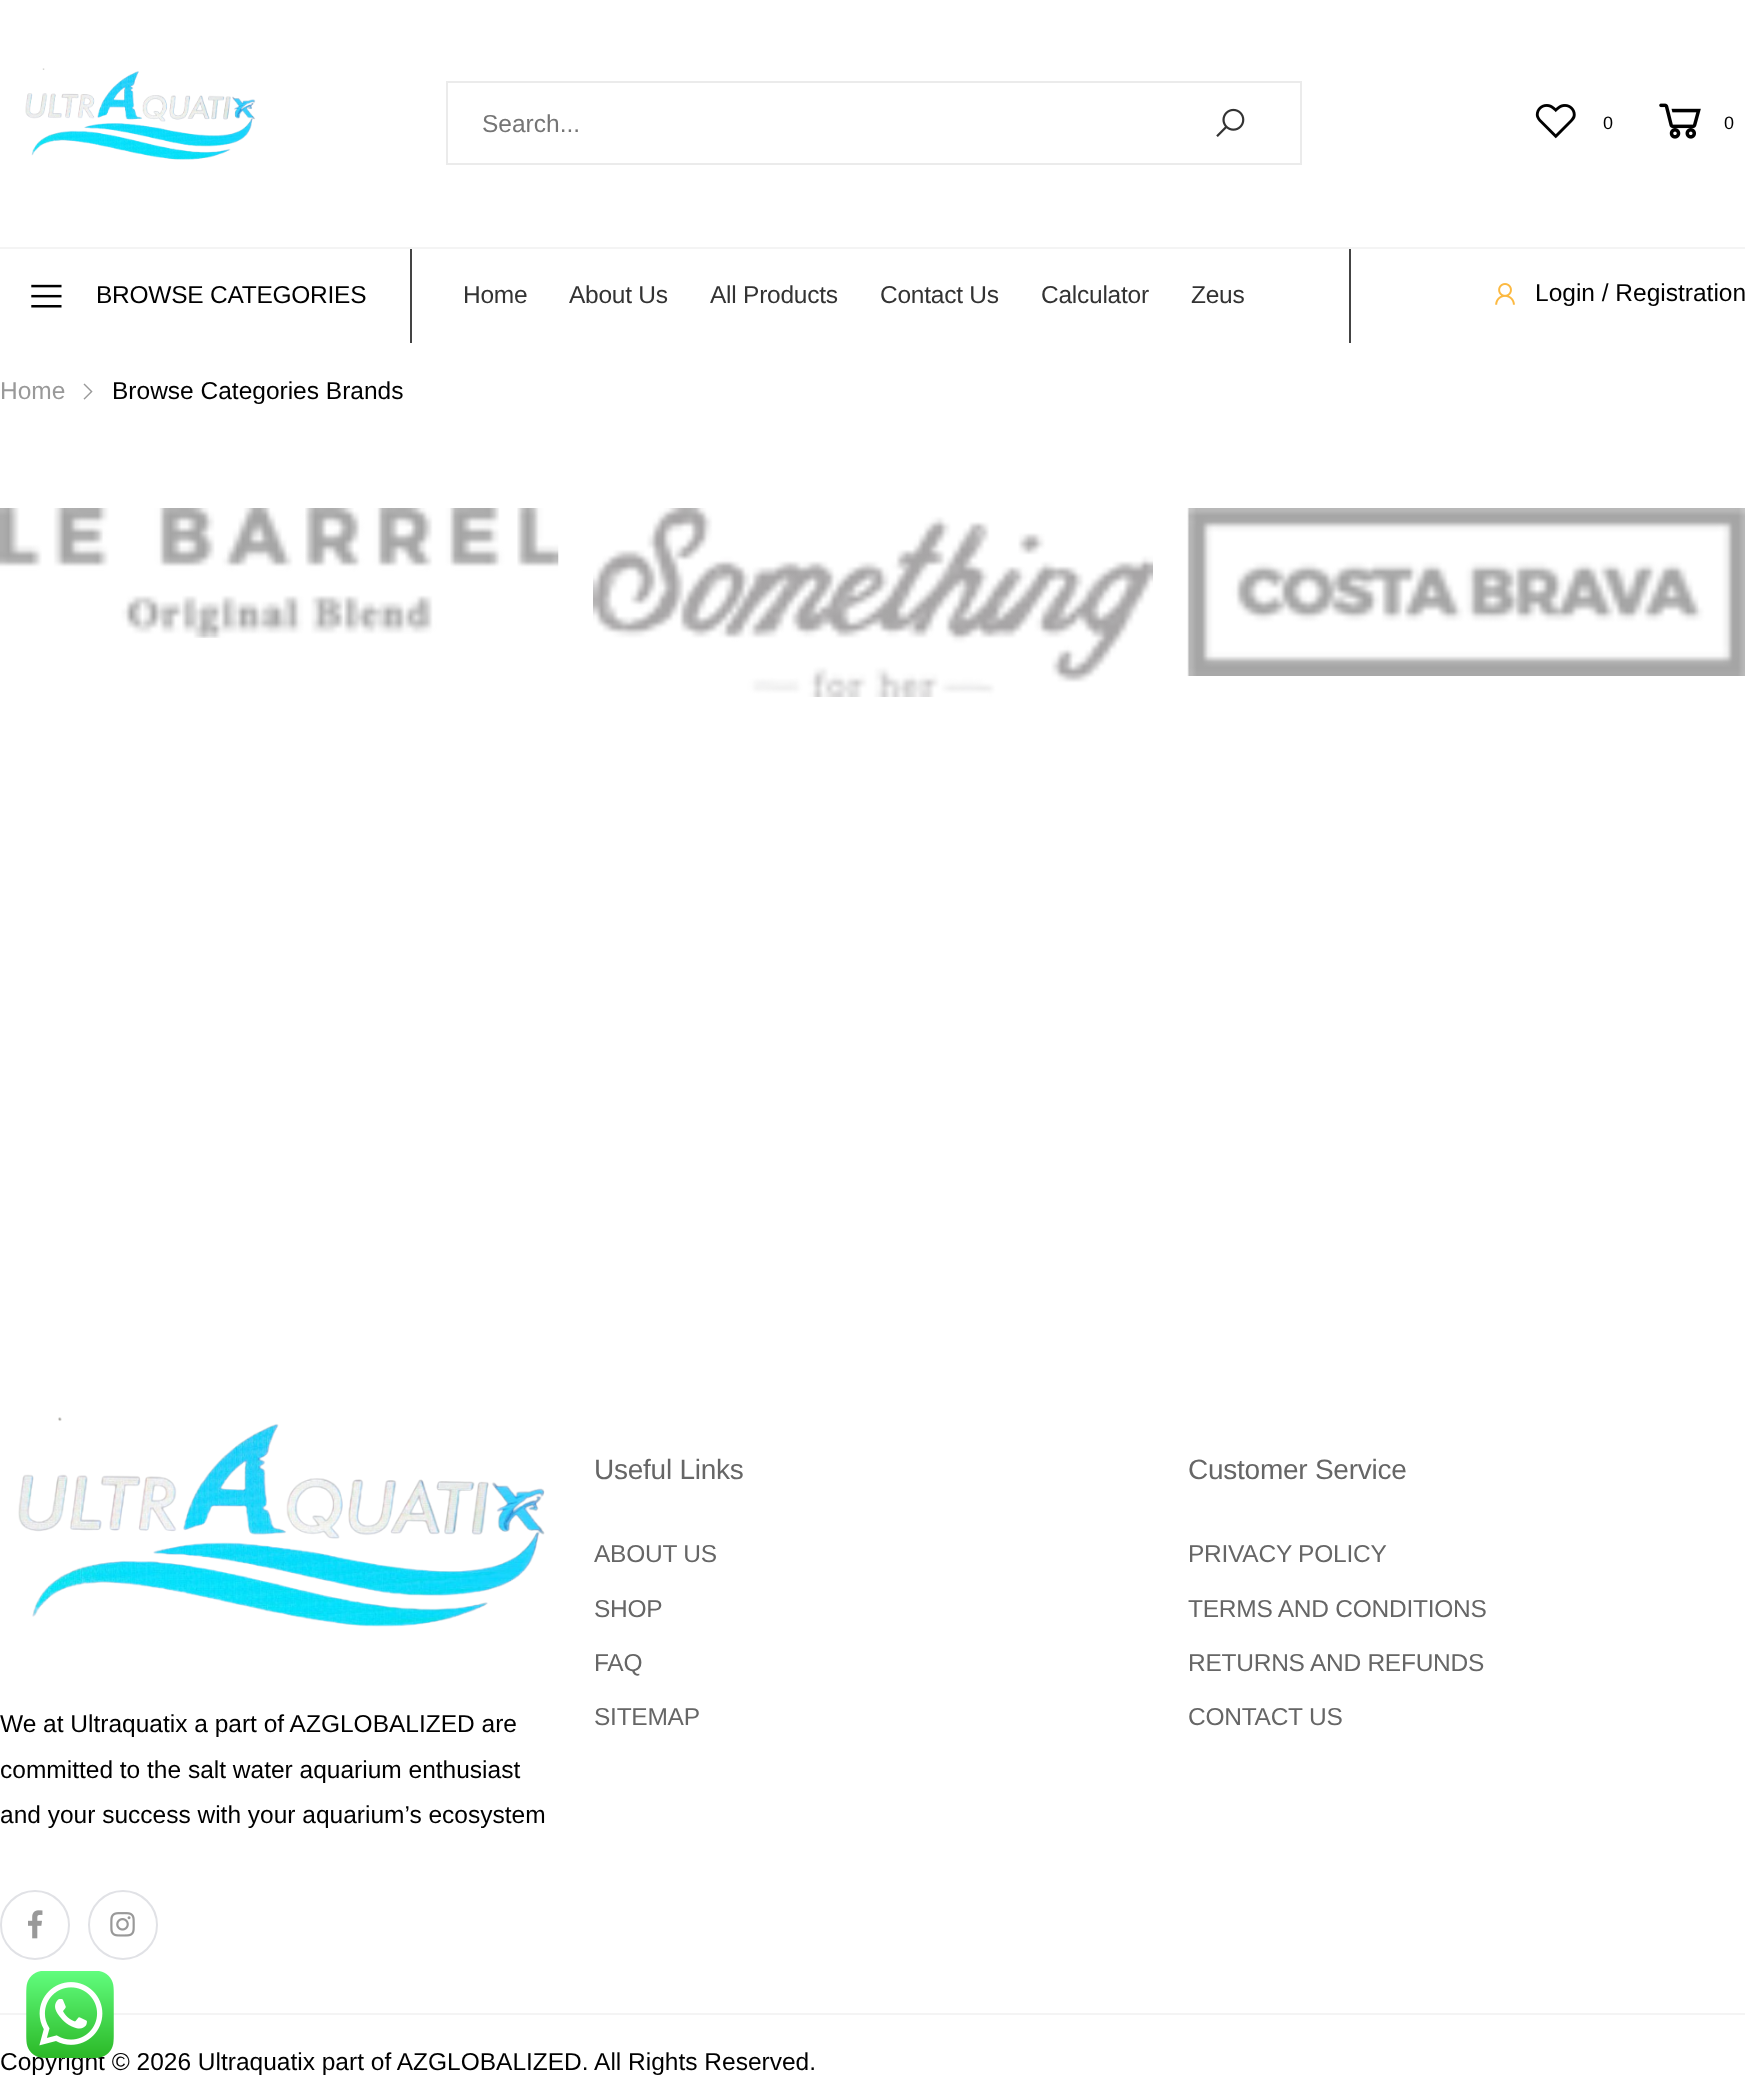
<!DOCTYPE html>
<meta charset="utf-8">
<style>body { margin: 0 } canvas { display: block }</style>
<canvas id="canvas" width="1745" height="2083"></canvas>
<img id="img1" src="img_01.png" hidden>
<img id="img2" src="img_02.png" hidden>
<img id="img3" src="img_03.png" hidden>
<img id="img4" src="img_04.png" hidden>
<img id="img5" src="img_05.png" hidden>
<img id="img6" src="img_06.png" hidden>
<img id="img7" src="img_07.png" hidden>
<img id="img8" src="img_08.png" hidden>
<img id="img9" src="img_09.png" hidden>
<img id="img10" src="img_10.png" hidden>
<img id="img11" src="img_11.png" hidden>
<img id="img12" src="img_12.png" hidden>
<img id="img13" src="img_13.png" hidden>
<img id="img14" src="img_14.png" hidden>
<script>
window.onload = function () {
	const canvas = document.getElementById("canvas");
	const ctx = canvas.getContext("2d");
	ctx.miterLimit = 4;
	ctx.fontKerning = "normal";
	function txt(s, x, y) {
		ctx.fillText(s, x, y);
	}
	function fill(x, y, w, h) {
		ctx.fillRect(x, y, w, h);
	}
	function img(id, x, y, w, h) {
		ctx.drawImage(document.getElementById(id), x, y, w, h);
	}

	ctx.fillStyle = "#FFFFFF";
	fill(0, 0, 1745, 2083);
	ctx.fillStyle = "#F4F4F4";
	fill(0, 247, 1745, 2);
	img("img1", 25, 68, 231, 92);
	ctx.strokeStyle = "#EBEBEB";
	ctx.lineWidth = 2;
	ctx.strokeRect(447, 82, 854, 82);
	img("img2", 1216, 108, 29, 29);
	img("img3", 1535, 104, 41, 35);
	img("img4", 1659, 103, 42, 36);
	ctx.fillStyle = "#444444";
	fill(410, 249, 2, 94);
	img("img5", 31, 284, 31, 24);
	fill(1349, 249, 2, 94);
	img("img6", 1495, 283, 20, 22);
	img("img7", 83, 383, 10, 17);
	img("img8", 0, 508, 559, 130);
	img("img9", 593, 508, 560, 189);
	img("img10", 1187, 508, 558, 168);
	img("img11", 18, 1417, 527, 210);
	ctx.beginPath();
	ctx.arc(35, 1925, 34, 0, Math.PI * 2);
	ctx.strokeStyle = "#E1E2E6";
	ctx.stroke();
	img("img12", 28, 1910, 15, 29);
	ctx.beginPath();
	ctx.arc(123, 1925, 34, 0, Math.PI * 2);
	ctx.stroke();
	img("img13", 110, 1912, 25, 25);
	ctx.fillStyle = "#F4F4F4";
	fill(0, 2013, 1745, 2);
	ctx.font = "24.5px Liberation Sans";
	ctx.fillStyle = "#757575";
	txt("Search...", 482, 132);
	ctx.font = "18px Liberation Sans";
	ctx.fillStyle = "#000000";
	txt("0", 1603, 129);
	txt("0", 1724, 129);
	ctx.letterSpacing = "-0.25px";
	ctx.font = "24.5px Liberation Sans";
	txt("BROWSE CATEGORIES", 96, 303);
	ctx.fillStyle = "#333333";
	txt("Home", 463, 303);
	txt("About Us", 569, 303);
	txt("All Products", 710, 303);
	txt("Contact Us", 880, 303);
	txt("Calculator", 1041, 303);
	txt("Zeus", 1191, 303);
	ctx.letterSpacing = "0px";
	ctx.fillStyle = "#000000";
	txt("Login / Registration", 1535, 301);
	ctx.fillStyle = "#999999";
	txt("Home", 0, 399);
	ctx.fillStyle = "#000000";
	txt("Browse Categories Brands", 112, 399);
	ctx.letterSpacing = "-0.25px";
	ctx.font = "28px Liberation Sans";
	ctx.fillStyle = "#666666";
	txt("Useful Links", 594, 1479);
	ctx.font = "24.5px Liberation Sans";
	txt("ABOUT US", 594, 1562);
	txt("SHOP", 594, 1617);
	txt("FAQ", 594, 1671);
	txt("SITEMAP", 594, 1725);
	ctx.font = "28px Liberation Sans";
	txt("Customer Service", 1188, 1479);
	ctx.font = "24.5px Liberation Sans";
	txt("PRIVACY POLICY", 1188, 1562);
	txt("TERMS AND CONDITIONS", 1188, 1617);
	txt("RETURNS AND REFUNDS", 1188, 1671);
	txt("CONTACT US", 1188, 1725);
	ctx.letterSpacing = "0px";
	ctx.fillStyle = "#000000";
	txt("We at Ultraquatix a part of AZGLOBALIZED are", 0, 1732);
	txt("committed to the salt water aquarium enthusiast", 0, 1778);
	txt("and your success with your aquarium’s ecosystem", 0, 1823);
	txt("Copyright © 2026 Ultraquatix part of AZGLOBALIZED. All Rights Reserved.", 0, 2070);
	img("img14", 26, 1971, 88, 87);
};
</script>
